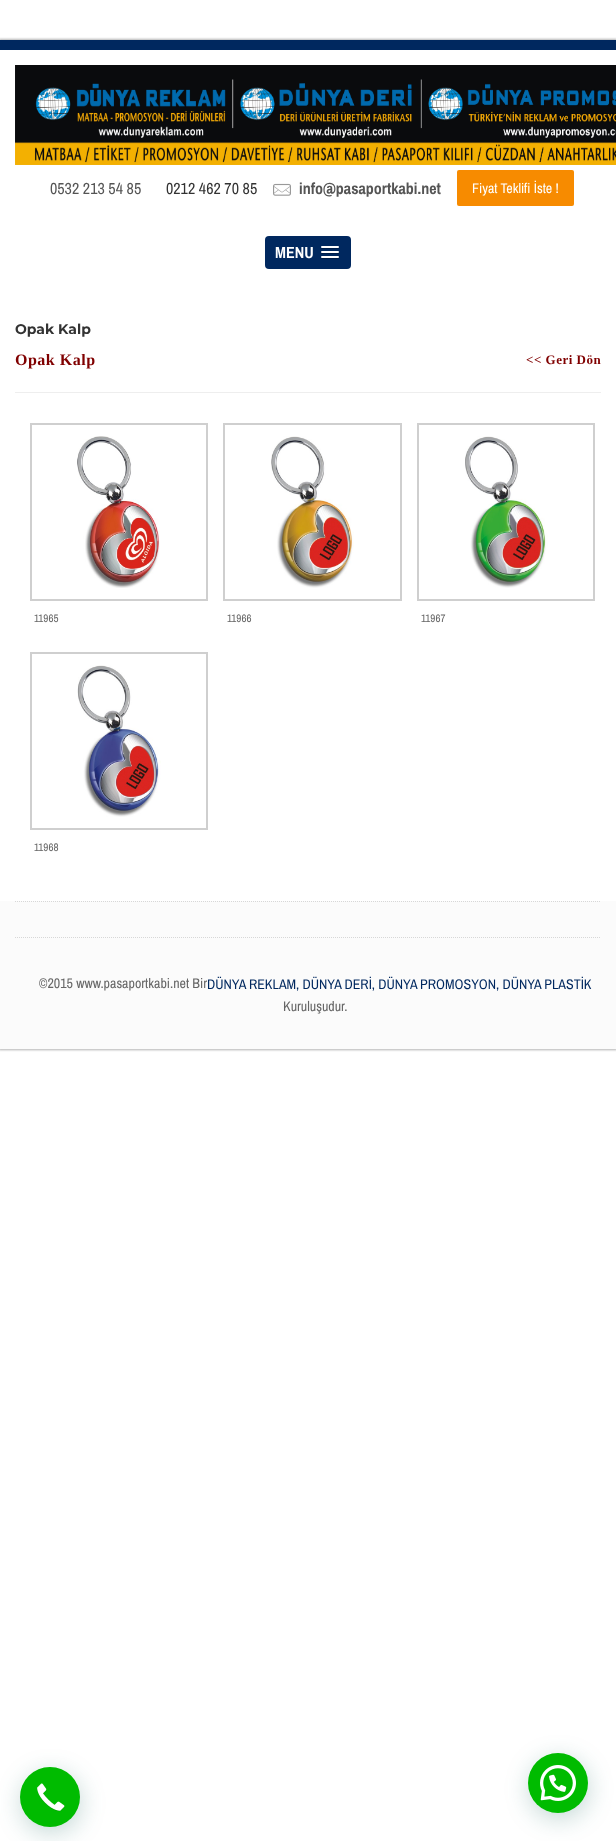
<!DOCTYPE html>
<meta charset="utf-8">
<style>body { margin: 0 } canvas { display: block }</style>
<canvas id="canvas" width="616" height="1841"></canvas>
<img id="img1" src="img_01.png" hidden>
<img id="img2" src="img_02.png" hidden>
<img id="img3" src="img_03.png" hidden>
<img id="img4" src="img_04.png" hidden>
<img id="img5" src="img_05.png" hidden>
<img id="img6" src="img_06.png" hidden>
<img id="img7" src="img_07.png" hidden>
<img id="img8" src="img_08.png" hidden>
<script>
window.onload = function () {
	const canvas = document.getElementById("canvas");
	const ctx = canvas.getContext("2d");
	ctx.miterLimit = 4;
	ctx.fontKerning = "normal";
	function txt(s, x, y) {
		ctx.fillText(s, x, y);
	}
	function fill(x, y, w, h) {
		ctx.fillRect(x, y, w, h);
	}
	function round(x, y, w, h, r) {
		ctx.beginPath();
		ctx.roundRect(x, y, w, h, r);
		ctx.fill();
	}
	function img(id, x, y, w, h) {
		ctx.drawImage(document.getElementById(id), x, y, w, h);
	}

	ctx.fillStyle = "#FFFFFF";
	fill(0, 0, 616, 1841);
	ctx.save();
	ctx.beginPath();
	ctx.moveTo(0, 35);
	ctx.lineTo(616, 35);
	ctx.lineTo(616, 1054);
	ctx.lineTo(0, 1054);
	ctx.closePath();
	ctx.moveTo(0, 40);
	ctx.lineTo(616, 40);
	ctx.lineTo(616, 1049);
	ctx.lineTo(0, 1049);
	ctx.closePath();
	ctx.clip("evenodd");
	ctx.fillStyle = "rgba(0, 0, 0, 0.3)";
	ctx.filter = "blur(1px)";
	ctx.beginPath();
	ctx.rect(-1, 39, 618, 1011);
	ctx.fill();
	ctx.filter = "none";
	ctx.restore();
	ctx.fillStyle = "#00285F";
	fill(0, 40, 616, 10);
	img("img1", 15, 65, 601, 100);
	img("img2", 273, 183, 18, 13);
	ctx.fillStyle = "#F78B00";
	round(457, 170, 117, 36, 2);
	ctx.fillStyle = "#00285F";
	round(265, 236, 86, 33, 4);
	ctx.fillStyle = "#001E47";
	ctx.beginPath();
	ctx.moveTo(321, 247.5);
	ctx.bezierCurveTo(320, 249.5, 324.5, 249, 324.5, 249);
	ctx.lineTo(335.5, 249);
	ctx.bezierCurveTo(335.5, 249, 340, 249.5, 339, 247.5);
	ctx.bezierCurveTo(338, 248.5, 331.5, 248, 330, 248);
	ctx.bezierCurveTo(328.5, 248, 322, 248.5, 321, 247.5);
	ctx.closePath();
	ctx.fill();
	ctx.fillStyle = "#FFFFFF";
	round(321, 246, 18, 2, 1);
	ctx.fillStyle = "#001E47";
	ctx.beginPath();
	ctx.moveTo(321, 252.5);
	ctx.bezierCurveTo(320, 254.5, 324.5, 254, 324.5, 254);
	ctx.lineTo(335.5, 254);
	ctx.bezierCurveTo(335.5, 254, 340, 254.5, 339, 252.5);
	ctx.bezierCurveTo(338, 253.5, 331.5, 253, 330, 253);
	ctx.bezierCurveTo(328.5, 253, 322, 253.5, 321, 252.5);
	ctx.closePath();
	ctx.fill();
	ctx.fillStyle = "#FFFFFF";
	round(321, 251, 18, 2, 1);
	ctx.fillStyle = "#001E47";
	ctx.beginPath();
	ctx.moveTo(321, 257.5);
	ctx.bezierCurveTo(320, 259.5, 324.5, 259, 324.5, 259);
	ctx.lineTo(335.5, 259);
	ctx.bezierCurveTo(335.5, 259, 340, 259.5, 339, 257.5);
	ctx.bezierCurveTo(338, 258.5, 331.5, 258, 330, 258);
	ctx.bezierCurveTo(328.5, 258, 322, 258.5, 321, 257.5);
	ctx.closePath();
	ctx.fill();
	ctx.fillStyle = "#FFFFFF";
	round(321, 256, 18, 2, 1);
	ctx.fillStyle = "#EEEEEE";
	fill(15, 392, 586, 1);
	ctx.strokeStyle = "#CFCFCF";
	ctx.lineWidth = 2;
	ctx.strokeRect(31, 424, 176, 176);
	img("img3", 77, 436, 83, 152);
	ctx.strokeRect(224, 424, 177, 176);
	img("img4", 271, 436, 83, 152);
	ctx.strokeRect(418, 424, 176, 176);
	img("img5", 465, 436, 83, 152);
	ctx.strokeRect(31, 653, 176, 176);
	img("img6", 77, 665, 84, 152);
	ctx.fillStyle = "#FBFBFB";
	fill(0, 901, 616, 148);
	ctx.beginPath();
	ctx.moveTo(15, 901.5);
	ctx.lineTo(601, 901.5);
	ctx.strokeStyle = "#D7D7D7";
	ctx.lineWidth = 1;
	ctx.setLineDash([1, 1]);
	ctx.stroke();
	ctx.beginPath();
	ctx.moveTo(15, 937.5);
	ctx.lineTo(601, 937.5);
	ctx.stroke();
	ctx.fillStyle = "rgba(7, 94, 84, 0.24)";
	ctx.filter = "blur(12px)";
	ctx.beginPath();
	ctx.roundRect(21, 1773, 60, 60, 30);
	ctx.fill();
	ctx.filter = "none";
	ctx.fillStyle = "#00BB00";
	ctx.beginPath();
	ctx.arc(50, 1797, 30, 0, Math.PI * 2);
	ctx.fill();
	img("img7", 37, 1783, 28, 29);
	ctx.fillStyle = "rgba(7, 94, 84, 0.24)";
	ctx.filter = "blur(12px)";
	ctx.beginPath();
	ctx.roundRect(529, 1759, 60, 60, 30);
	ctx.fill();
	ctx.filter = "none";
	ctx.fillStyle = "#00BB00";
	ctx.beginPath();
	ctx.arc(558, 1783, 30, 0, Math.PI * 2);
	ctx.fill();
	img("img8", 540, 1765, 36, 36);
	ctx.font = "16px Archivo Narrow";
	ctx.fillStyle = "#555555";
	txt("0532 213 54 85", 50, 194);
	ctx.fillStyle = "#333333";
	txt("0212 462 70 85", 166, 194);
	ctx.font = "bold 16px Archivo Narrow";
	ctx.fillStyle = "#555555";
	txt("info@pasaportkabi.net", 299, 194);
	ctx.font = "14px Archivo Narrow";
	ctx.fillStyle = "#FFFFFF";
	txt("Fiyat Teklifi İste !", 472, 193);
	ctx.font = "bold 16px Archivo Narrow";
	txt("MENU", 275, 258);
	ctx.font = "bold 14px Montserrat";
	ctx.fillStyle = "#333333";
	txt("Opak Kalp", 15, 334);
	ctx.letterSpacing = "0.5px";
	ctx.font = "bold 16px Liberation Serif";
	ctx.fillStyle = "#800000";
	txt("Opak Kalp", 15, 365);
	ctx.font = "bold 13px Liberation Serif";
	txt("<< Geri Dön", 526, 364);
	ctx.letterSpacing = "0px";
	ctx.font = "11px Archivo Narrow";
	ctx.fillStyle = "#666666";
	txt("11965", 34, 622);
	txt("11966", 227, 622);
	txt("11967", 421, 622);
	txt("11968", 34, 851);
	ctx.font = "14px Archivo Narrow";
	txt("©2015 www.pasaportkabi.net Bir", 39, 988);
	ctx.fillStyle = "#00285F";
	txt("DÜNYA REKLAM, DÜNYA DERİ, DÜNYA PROMOSYON, DÜNYA PLASTİK", 207, 989);
	ctx.fillStyle = "#666666";
	txt("Kuruluşudur.", 283, 1011);
};
</script>
